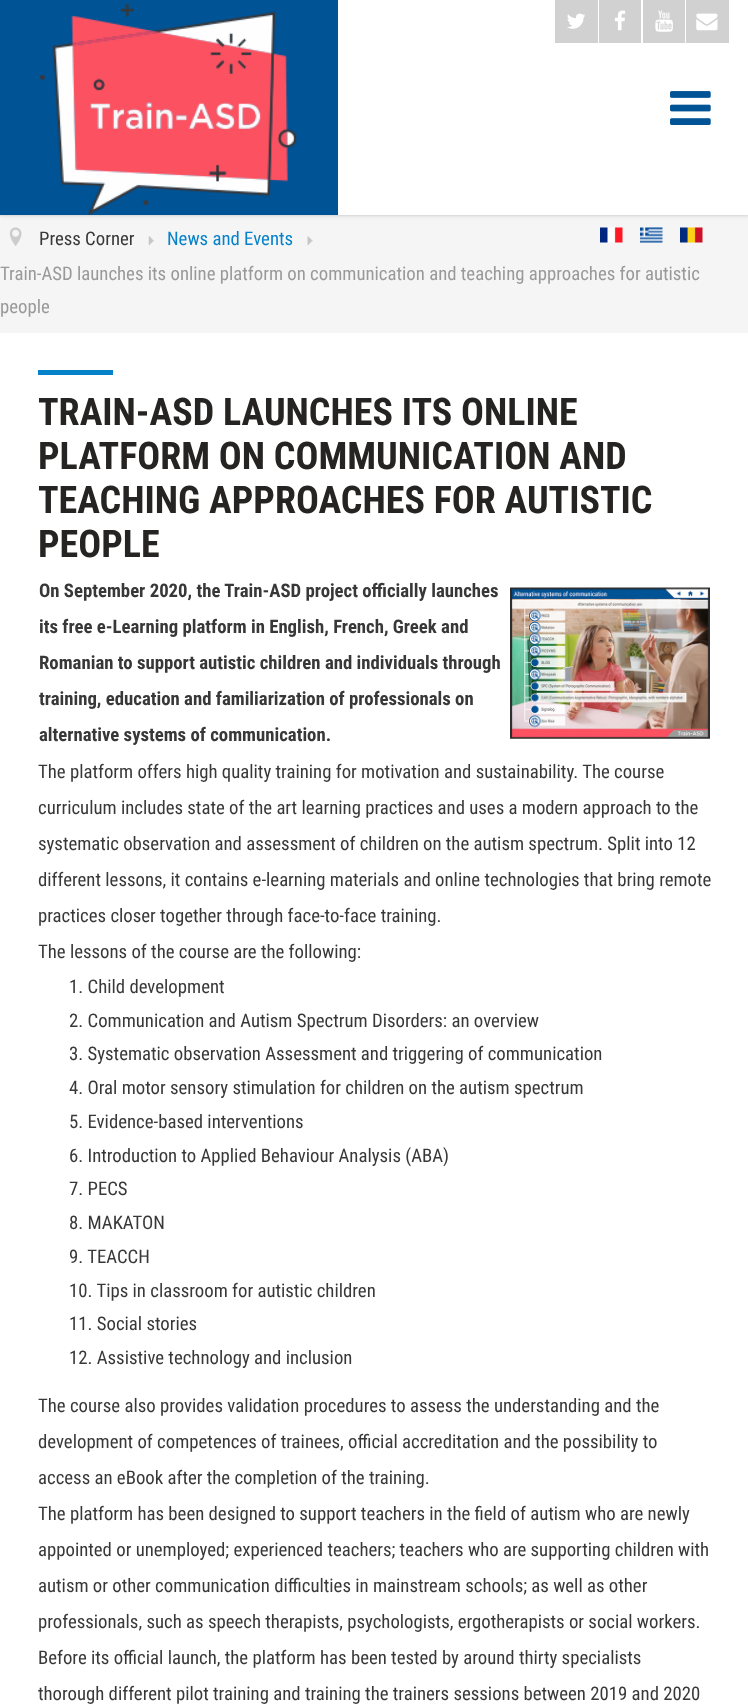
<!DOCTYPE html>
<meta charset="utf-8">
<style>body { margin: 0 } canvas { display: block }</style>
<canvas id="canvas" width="748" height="1706"></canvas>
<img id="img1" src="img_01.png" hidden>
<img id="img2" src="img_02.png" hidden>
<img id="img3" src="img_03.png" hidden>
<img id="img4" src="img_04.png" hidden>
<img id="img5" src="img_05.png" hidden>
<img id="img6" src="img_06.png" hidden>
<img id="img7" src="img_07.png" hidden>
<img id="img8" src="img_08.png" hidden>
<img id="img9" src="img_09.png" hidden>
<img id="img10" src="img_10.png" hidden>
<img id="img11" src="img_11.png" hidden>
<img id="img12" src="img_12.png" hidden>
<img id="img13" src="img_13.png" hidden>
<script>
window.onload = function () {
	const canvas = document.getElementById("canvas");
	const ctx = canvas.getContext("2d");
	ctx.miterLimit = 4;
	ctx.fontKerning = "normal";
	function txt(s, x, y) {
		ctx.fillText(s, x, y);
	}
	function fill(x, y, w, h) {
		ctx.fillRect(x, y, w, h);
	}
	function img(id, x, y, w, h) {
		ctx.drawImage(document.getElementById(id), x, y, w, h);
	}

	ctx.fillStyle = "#F5F5F5";
	fill(0, 0, 748, 1706);
	ctx.fillStyle = "rgba(52, 58, 67, 0.08)";
	ctx.filter = "blur(2.5px)";
	ctx.beginPath();
	ctx.rect(0, 1, 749, 215);
	ctx.fill();
	ctx.filter = "none";
	ctx.filter = "blur(1px)";
	ctx.beginPath();
	ctx.rect(0, 1, 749, 215);
	ctx.fill();
	ctx.filter = "none";
	ctx.fillStyle = "rgba(52, 58, 67, 0.1)";
	ctx.filter = "blur(1px)";
	ctx.beginPath();
	ctx.rect(0, 0, 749, 215);
	ctx.fill();
	ctx.filter = "none";
	ctx.fillStyle = "#FFFFFF";
	fill(338, 0, 410, 215);
	ctx.fillStyle = "#005395";
	fill(0, 0, 338, 215);
	img("img1", 39, 3, 258, 212);
	ctx.fillStyle = "#D1D1D1";
	fill(555, 0, 43, 43);
	img("img2", 567, 13, 19, 16);
	fill(599, 0, 42, 43);
	img("img3", 614, 10, 12, 21);
	fill(643, 0, 42, 43);
	img("img4", 655, 10, 18, 22);
	fill(686, 0, 43, 43);
	img("img5", 696, 13, 22, 18);
	img("img6", 670, 91, 41, 34);
	img("img7", 600, 227, 23, 16);
	img("img8", 640, 227, 23, 16);
	img("img9", 680, 227, 23, 16);
	img("img10", 9, 227, 13, 19);
	img("img11", 148, 236, 6, 10);
	img("img12", 307, 236, 6, 10);
	ctx.fillStyle = "#FFFFFF";
	fill(0, 333, 748, 1373);
	ctx.fillStyle = "#0582CA";
	fill(38, 370, 75, 5);
	img("img13", 510, 587, 200, 152);
	ctx.font = "18.75px Roboto Condensed";
	ctx.fillStyle = "#383838";
	txt("Press Corner", 39, 245);
	ctx.fillStyle = "#0582CA";
	txt("News and Events", 167, 245);
	ctx.fillStyle = "#999999";
	txt("Train-ASD launches its online platform on communication and teaching approaches for autistic", 0, 280);
	txt("people", 0, 313);
	ctx.font = "bold 38px Roboto Condensed";
	ctx.fillStyle = "#252422";
	txt("TRAIN-ASD LAUNCHES ITS ONLINE", 38, 425);
	txt("PLATFORM ON COMMUNICATION AND", 38, 469);
	txt("TEACHING APPROACHES FOR AUTISTIC", 38, 513);
	txt("PEOPLE", 38, 557);
	ctx.font = "bold 18.75px Roboto Condensed";
	ctx.fillStyle = "#383838";
	txt("On September 2020, the Train-ASD project officially launches", 39, 597);
	txt("its free e-Learning platform in English, French, Greek and", 39, 633);
	txt("Romanian to support autistic children and individuals through", 39, 669);
	txt("training, education and familiarization of professionals on", 39, 705);
	txt("alternative systems of communication.", 39, 741);
	ctx.font = "18.75px Roboto Condensed";
	txt("The platform offers high quality training for motivation and sustainability. The course", 38, 778);
	txt("curriculum includes state of the art learning practices and uses a modern approach to the", 38, 814);
	txt("systematic observation and assessment of children on the autism spectrum. Split into 12", 38, 850);
	txt("different lessons, it contains e-learning materials and online technologies that bring remote", 38, 886);
	txt("practices closer together through face-to-face training.", 38, 922);
	txt("The lessons of the course are the following:", 38, 958);
	txt("1. Child development", 69, 993);
	txt("2. Communication and Autism Spectrum Disorders: an overview", 69, 1027);
	txt("3. Systematic observation Assessment and triggering of communication", 69, 1060);
	txt("4. Oral motor sensory stimulation for children on the autism spectrum", 69, 1094);
	txt("5. Evidence-based interventions", 69, 1128);
	txt("6. Introduction to Applied Behaviour Analysis (ABA)", 69, 1162);
	txt("7. PECS", 69, 1195);
	txt("8. MAKATON", 69, 1229);
	txt("9. TEACCH", 69, 1263);
	txt("10. Tips in classroom for autistic children", 69, 1297);
	txt("11. Social stories", 69, 1330);
	txt("12. Assistive technology and inclusion", 69, 1364);
	txt("The course also provides validation procedures to assess the understanding and the", 38, 1412);
	txt("development of competences of trainees, official accreditation and the possibility to", 38, 1448);
	txt("access an eBook after the completion of the training.", 38, 1484);
	txt("The platform has been designed to support teachers in the field of autism who are newly", 38, 1520);
	txt("appointed or unemployed; experienced teachers; teachers who are supporting children with", 38, 1556);
	txt("autism or other communication difficulties in mainstream schools; as well as other", 38, 1592);
	txt("professionals, such as speech therapists, psychologists, ergotherapists or social workers.", 38, 1628);
	txt("Before its official launch, the platform has been tested by around thirty specialists", 38, 1664);
	txt("thorough different pilot training and training the trainers sessions between 2019 and 2020", 38, 1700);
};
</script>
